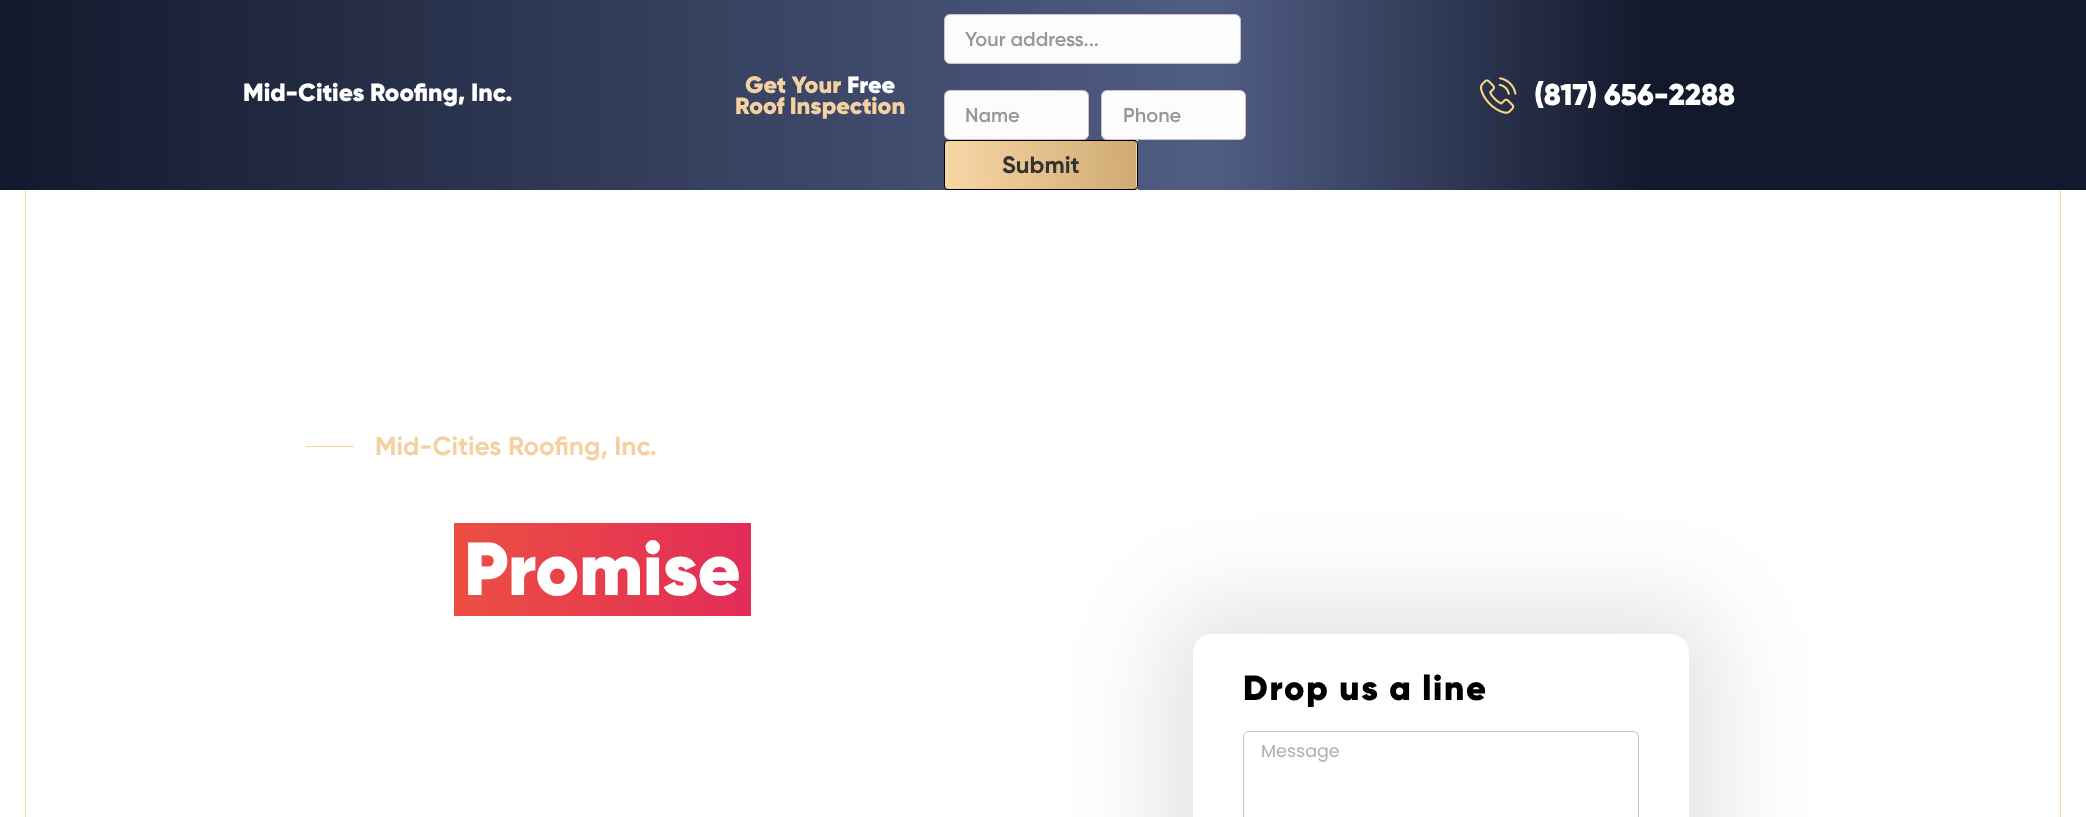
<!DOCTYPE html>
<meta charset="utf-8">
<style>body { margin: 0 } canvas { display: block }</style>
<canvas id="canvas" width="2086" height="817"></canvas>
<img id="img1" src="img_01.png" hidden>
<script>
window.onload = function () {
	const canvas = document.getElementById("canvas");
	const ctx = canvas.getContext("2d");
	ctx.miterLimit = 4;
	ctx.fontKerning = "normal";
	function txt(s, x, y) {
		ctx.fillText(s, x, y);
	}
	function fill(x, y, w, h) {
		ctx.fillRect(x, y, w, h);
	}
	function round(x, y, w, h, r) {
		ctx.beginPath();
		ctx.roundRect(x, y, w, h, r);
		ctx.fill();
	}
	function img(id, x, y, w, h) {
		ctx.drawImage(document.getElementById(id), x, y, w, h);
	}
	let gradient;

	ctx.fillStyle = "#FFFFFF";
	fill(0, 0, 2086, 817);
	ctx.strokeStyle = "#F7D7A7";
	ctx.strokeRect(25.5, 105.5, 2035, 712);
	gradient = ctx.createLinearGradient(0, 95, 2086, 95);
	gradient.addColorStop(0, "#13192C");
	gradient.addColorStop(0, "rgba(116, 207, 0, 0.77)");
	gradient.addColorStop(0, "#13192C");
	gradient.addColorStop(0.58, "#505D84");
	gradient.addColorStop(0.79, "#13192C");
	ctx.fillStyle = gradient;
	fill(0, 0, 2086, 190);
	ctx.fillStyle = "#FCFCFC";
	ctx.beginPath();
	ctx.roundRect(944.5, 14.5, 296, 49, 5.5);
	ctx.fill();
	ctx.strokeStyle = "#CCC4C4";
	ctx.stroke();
	ctx.beginPath();
	ctx.roundRect(944.5, 90.5, 144, 49, 5.5);
	ctx.fill();
	ctx.stroke();
	ctx.beginPath();
	ctx.roundRect(1101.5, 90.5, 144, 49, 5.5);
	ctx.fill();
	ctx.stroke();
	gradient = ctx.createLinearGradient(1135, 122, 1328, 113);
	gradient.addColorStop(0, "#F8D7A7");
	gradient.addColorStop(0.51, "#E3C08C");
	gradient.addColorStop(0.99, "#CFAA73");
	ctx.fillStyle = gradient;
	fill(1136, 140, 2, 1);
	gradient = ctx.createLinearGradient(944, 170, 1137, 160);
	gradient.addColorStop(0, "#F8D7A7");
	gradient.addColorStop(0.51, "#E3C08C");
	gradient.addColorStop(0.99, "#CFAA73");
	ctx.fillStyle = gradient;
	fill(945, 141, 191, 48);
	ctx.save();
	ctx.beginPath();
	ctx.roundRect(944, 140, 194, 50, 4);
	ctx.clip();
	gradient = ctx.createLinearGradient(1135, 170, 1328, 160);
	gradient.addColorStop(0, "#F8D7A7");
	gradient.addColorStop(0.51, "#E3C08C");
	gradient.addColorStop(0.99, "#CFAA73");
	ctx.fillStyle = gradient;
	fill(1136, 141, 2, 48);
	ctx.restore();
	gradient = ctx.createLinearGradient(1135, 217, 1328, 208);
	gradient.addColorStop(0, "#F8D7A7");
	gradient.addColorStop(0.51, "#E3C08C");
	gradient.addColorStop(0.99, "#CFAA73");
	ctx.fillStyle = gradient;
	fill(1136, 189, 2, 1);
	ctx.beginPath();
	ctx.roundRect(944.5, 140.5, 193, 49, 3.5);
	ctx.strokeStyle = "#000000";
	ctx.stroke();
	img("img1", 1480, 77, 37, 37);
	ctx.fillStyle = "#F3D1A0";
	fill(306, 446, 48, 1);
	gradient = ctx.createLinearGradient(454, 570, 751, 569);
	gradient.addColorStop(0, "#EC4F42");
	gradient.addColorStop(1, "#E22C58");
	ctx.fillStyle = gradient;
	fill(454, 523, 297, 93);
	ctx.fillStyle = "rgba(0, 0, 0, 0.11)";
	ctx.filter = "blur(47px)";
	ctx.beginPath();
	ctx.roundRect(1161, 603, 559, 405, 50);
	ctx.fill();
	ctx.filter = "none";
	ctx.fillStyle = "#FFFFFF";
	round(1193, 634, 496, 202, 19);
	ctx.beginPath();
	ctx.roundRect(1243.5, 731.5, 395, 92, 5.5);
	ctx.strokeStyle = "#C4C4C4";
	ctx.stroke();
	ctx.font = "900 25px Gilroy";
	txt("Mid-Cities Roofing, Inc.", 243, 101);
	ctx.font = "900 23.75px Gilroy";
	ctx.fillStyle = "#F3D1A0";
	txt("Get Your", 745, 93);
	ctx.fillStyle = "#FFFFFF";
	txt("Free", 847, 93);
	ctx.fillStyle = "#F3D1A0";
	txt("Roof Inspection", 735, 114);
	ctx.font = "600 20px Gilroy";
	ctx.fillStyle = "#979797";
	txt("Your address...", 965, 46);
	txt("Name", 965, 122);
	txt("Phone", 1123, 122);
	ctx.font = "bold 23.75px Gilroy";
	ctx.fillStyle = "#333333";
	txt("Submit", 1002, 173);
	ctx.font = "900 30px Gilroy";
	ctx.fillStyle = "#FFFFFF";
	txt("(817) 656-2288", 1534, 105);
	ctx.font = "bold 26.25px Gilroy";
	ctx.fillStyle = "#F3D1A0";
	txt("Mid-Cities Roofing, Inc.", 375, 455);
	ctx.font = "900 75px Gilroy";
	ctx.fillStyle = "#FFFFFF";
	txt("Promise", 464, 595);
	ctx.letterSpacing = "1.75px";
	ctx.font = "900 35px Gilroy";
	ctx.fillStyle = "#000000";
	txt("Drop us a line", 1243, 700);
	ctx.letterSpacing = "0px";
	ctx.font = "17.5px Poppins";
	ctx.fillStyle = "#AFAFAF";
	txt("Message", 1261, 757);
};
</script>
